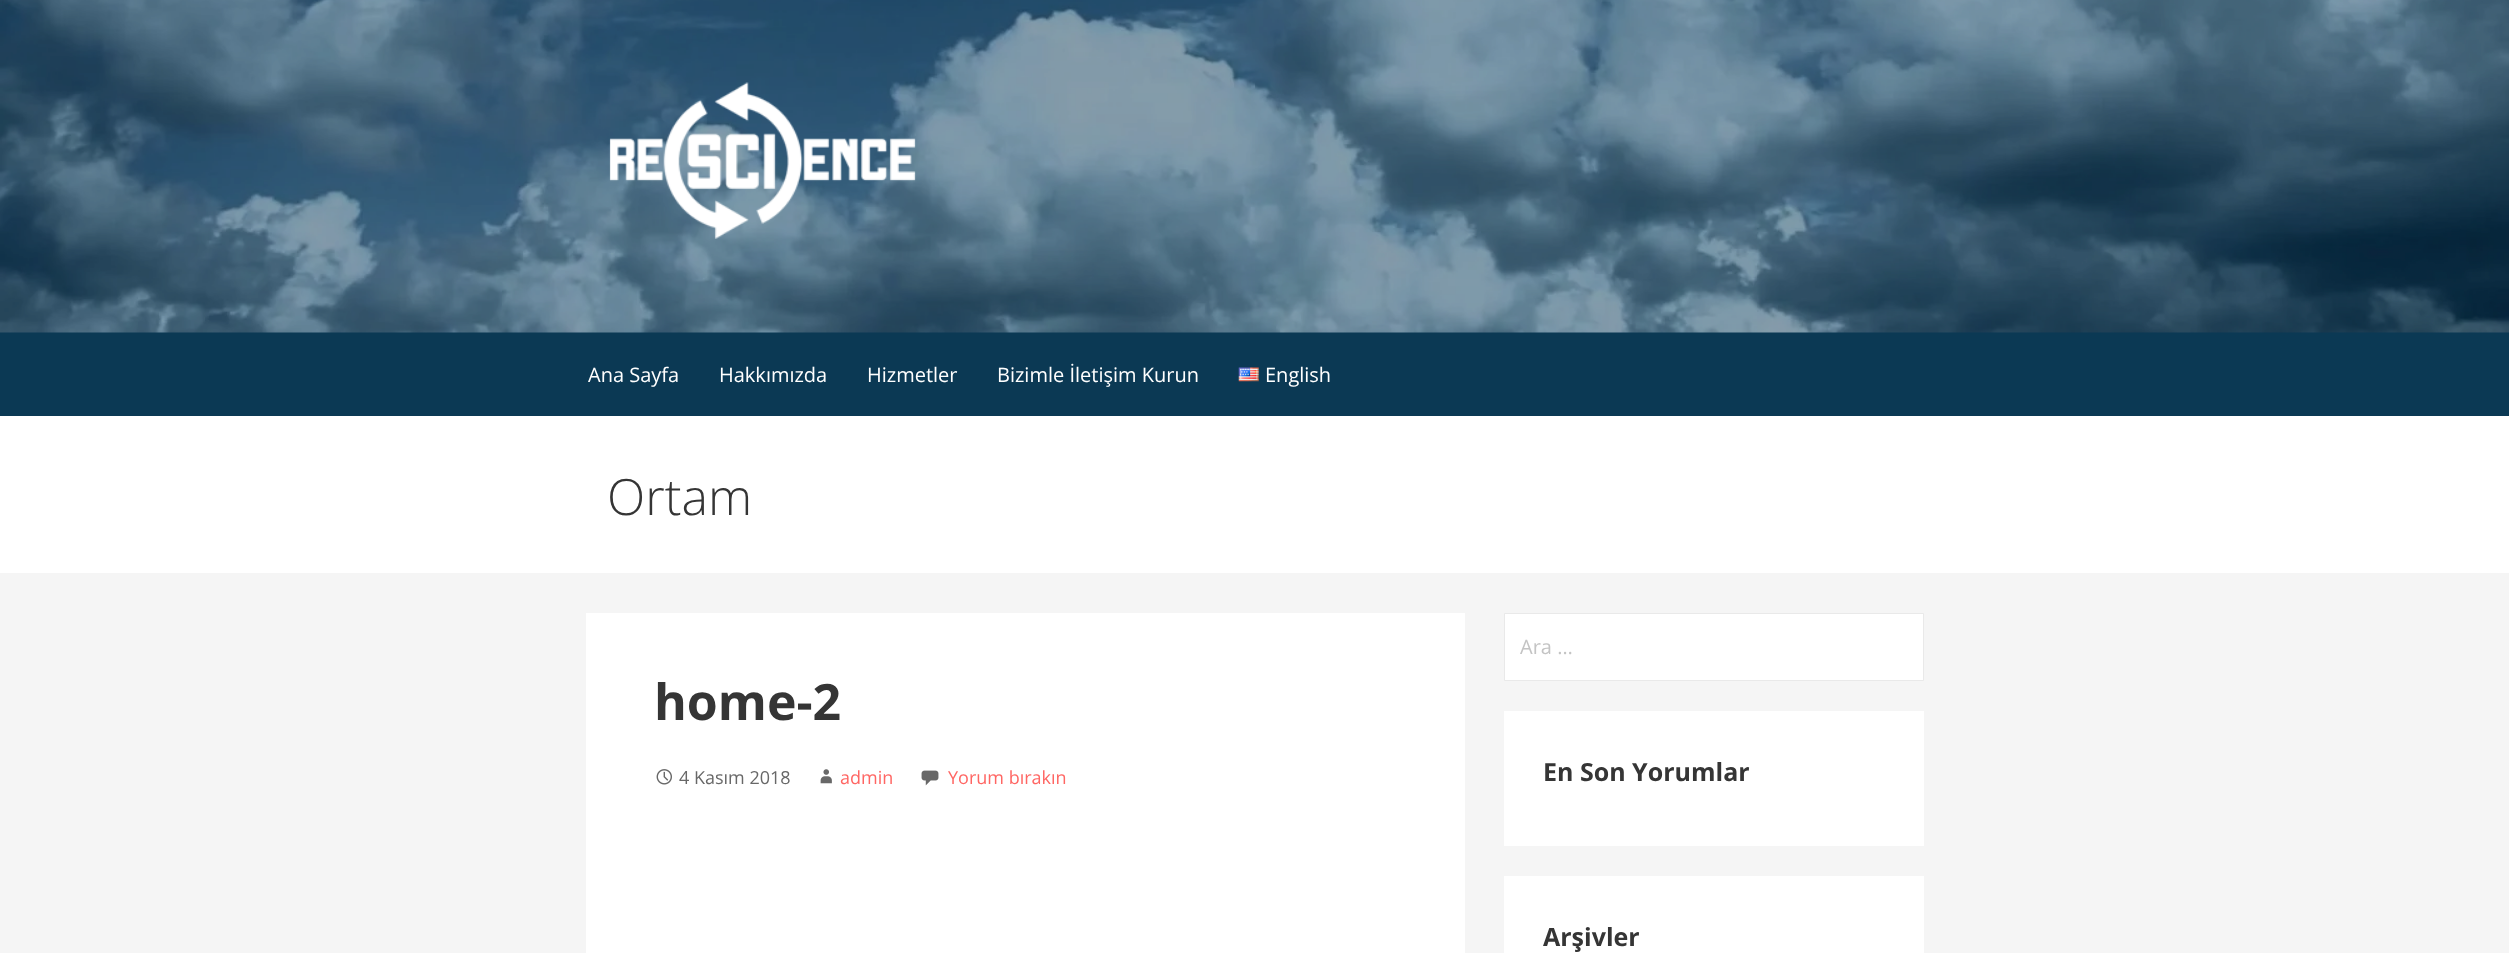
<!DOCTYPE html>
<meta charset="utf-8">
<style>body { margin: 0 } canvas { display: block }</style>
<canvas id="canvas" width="2509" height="953"></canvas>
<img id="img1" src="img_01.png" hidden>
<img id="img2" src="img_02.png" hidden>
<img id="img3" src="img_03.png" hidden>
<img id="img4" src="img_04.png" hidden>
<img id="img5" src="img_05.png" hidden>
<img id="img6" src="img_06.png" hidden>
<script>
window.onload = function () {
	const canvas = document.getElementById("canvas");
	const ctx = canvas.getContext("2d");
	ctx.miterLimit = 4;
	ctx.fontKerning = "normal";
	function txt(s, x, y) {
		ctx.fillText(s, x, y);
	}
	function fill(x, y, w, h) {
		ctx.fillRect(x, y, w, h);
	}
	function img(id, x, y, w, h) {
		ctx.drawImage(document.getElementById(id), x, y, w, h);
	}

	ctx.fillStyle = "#F5F5F5";
	fill(0, 0, 2509, 953);
	ctx.fillStyle = "#0B3954";
	fill(0, 332, 2509, 84);
	img("img1", 0, 0, 2509, 333);
	img("img2", 609, 82, 307, 157);
	img("img3", 1238, 367, 21, 15);
	ctx.fillStyle = "#FFFFFF";
	fill(0, 416, 2509, 157);
	fill(586, 613, 879, 340);
	img("img4", 656, 769, 16, 16);
	img("img5", 820, 769, 12, 15);
	img("img6", 921, 770, 18, 16);
	ctx.beginPath();
	ctx.rect(1504.5, 613.5, 419, 67);
	ctx.fill();
	ctx.strokeStyle = "#E9E9E9";
	ctx.stroke();
	fill(1504, 711, 420, 135);
	fill(1504, 876, 420, 77);
	ctx.font = "20px Open Sans";
	txt("Ana Sayfa", 588, 382);
	txt("Hakkımızda", 719, 382);
	txt("Hizmetler", 867, 382);
	txt("Bizimle İletişim Kurun", 997, 382);
	txt("English", 1265, 382);
	ctx.font = "300 50px Open Sans";
	ctx.fillStyle = "#353535";
	txt("Ortam", 607, 515);
	ctx.font = "bold 50px Open Sans";
	txt("home-2", 654, 720);
	ctx.font = "18px Open Sans";
	ctx.fillStyle = "#686868";
	txt("4 Kasım 2018", 679, 784);
	ctx.fillStyle = "#FF6663";
	txt("admin", 840, 784);
	txt("Yorum bırakın", 948, 784);
	ctx.font = "20px Open Sans";
	ctx.fillStyle = "#C4C4C4";
	txt("Ara …", 1520, 654);
	ctx.font = "bold 25px Open Sans";
	ctx.fillStyle = "#353535";
	txt("En Son Yorumlar", 1543, 781);
	txt("Arşivler", 1543, 946);
};
</script>
